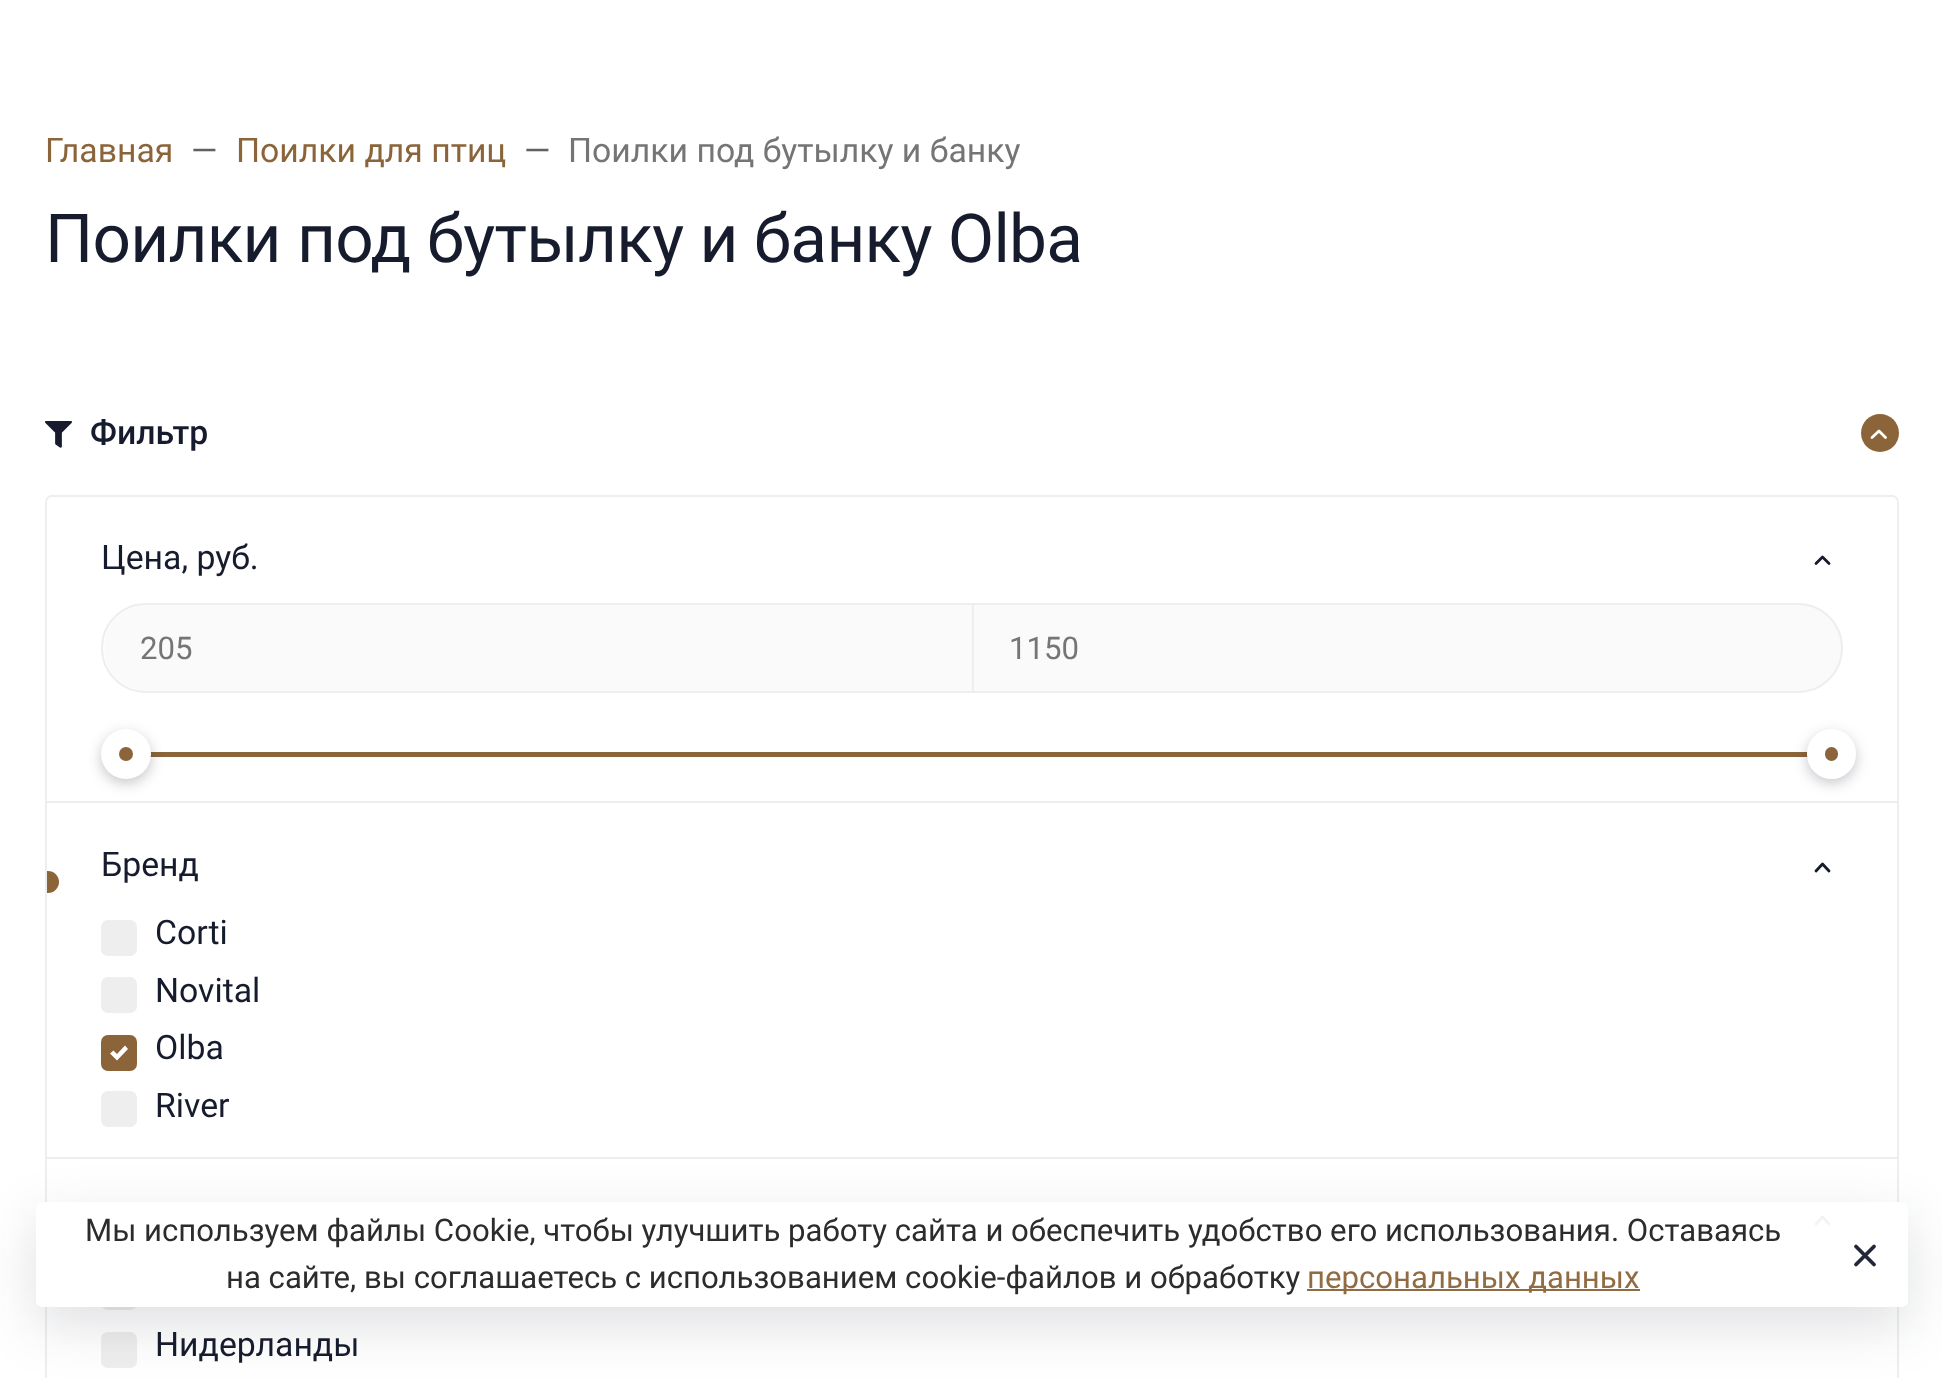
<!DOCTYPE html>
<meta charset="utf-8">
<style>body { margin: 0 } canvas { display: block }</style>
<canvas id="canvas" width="1942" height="1378"></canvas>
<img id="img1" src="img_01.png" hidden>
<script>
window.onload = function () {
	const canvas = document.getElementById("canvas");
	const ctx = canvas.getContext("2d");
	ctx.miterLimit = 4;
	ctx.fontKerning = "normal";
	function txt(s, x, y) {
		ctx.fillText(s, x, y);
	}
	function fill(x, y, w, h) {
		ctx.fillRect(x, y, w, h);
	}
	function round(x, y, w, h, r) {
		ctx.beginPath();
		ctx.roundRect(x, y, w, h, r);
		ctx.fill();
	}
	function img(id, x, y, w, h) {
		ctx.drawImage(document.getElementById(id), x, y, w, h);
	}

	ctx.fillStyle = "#FFFFFF";
	fill(0, 0, 1942, 1378);
	img("img1", 45, 421, 27, 27);
	ctx.fillStyle = "#8B6439";
	ctx.beginPath();
	ctx.arc(1880, 433, 19, 0, Math.PI * 2);
	ctx.fill();
	ctx.beginPath();
	ctx.moveTo(1885.5, 437.5);
	ctx.lineTo(1879, 431);
	ctx.lineTo(1872, 437.5);
	ctx.strokeStyle = "#FFFFFF";
	ctx.lineWidth = 2.8;
	ctx.lineCap = "round";
	ctx.lineJoin = "round";
	ctx.stroke();
	ctx.beginPath();
	ctx.roundRect(46, 496, 1852, 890, 6);
	ctx.strokeStyle = "#EEEEEE";
	ctx.lineWidth = 2;
	ctx.lineJoin = "miter";
	ctx.stroke();
	ctx.fillStyle = "#EEEEEE";
	fill(47, 801, 1850, 2);
	ctx.beginPath();
	ctx.moveTo(1829, 563.5);
	ctx.lineTo(1822.5, 557);
	ctx.lineTo(1816, 563.5);
	ctx.strokeStyle = "#161C2D";
	ctx.lineWidth = 2.8;
	ctx.lineJoin = "round";
	ctx.stroke();
	ctx.fillStyle = "#FAFAFA";
	ctx.beginPath();
	ctx.roundRect(104, 605, 868, 86, [43, 0, 0, 43]);
	ctx.fill();
	ctx.beginPath();
	ctx.roundRect(102, 604, 871, 88, [44, 0, 0, 44]);
	ctx.strokeStyle = "#EEEEEE";
	ctx.lineWidth = 2;
	ctx.lineJoin = "miter";
	ctx.stroke();
	ctx.beginPath();
	ctx.roundRect(973, 604, 869, 88, [0, 44, 44, 0]);
	ctx.fill();
	ctx.stroke();
	ctx.fillStyle = "#8B6439";
	fill(150, 752, 1658, 5);
	ctx.fillStyle = "rgba(22, 28, 45, 0.25)";
	ctx.filter = "blur(7px)";
	ctx.beginPath();
	ctx.roundRect(101, 734, 50, 49, 24.5);
	ctx.fill();
	ctx.filter = "none";
	ctx.fillStyle = "#FFFFFF";
	ctx.beginPath();
	ctx.arc(126, 754, 25, 0, Math.PI * 2);
	ctx.fill();
	ctx.fillStyle = "#8B6439";
	ctx.beginPath();
	ctx.arc(126, 754, 7, 0, Math.PI * 2);
	ctx.fill();
	ctx.fillStyle = "rgba(22, 28, 45, 0.25)";
	ctx.filter = "blur(7px)";
	ctx.beginPath();
	ctx.roundRect(1807, 734, 49, 49, 24.5);
	ctx.fill();
	ctx.filter = "none";
	ctx.fillStyle = "#FFFFFF";
	round(1807, 729, 49, 50, 24.5);
	ctx.fillStyle = "#8B6439";
	round(1825, 747, 13, 14, 6.5);
	ctx.fillStyle = "#EEEEEE";
	fill(47, 1157, 1850, 2);
	ctx.fillStyle = "#8B6439";
	round(36, 871, 23, 22, 11);
	ctx.beginPath();
	ctx.moveTo(1829, 871);
	ctx.lineTo(1822.5, 864);
	ctx.lineTo(1816, 871);
	ctx.strokeStyle = "#161C2D";
	ctx.lineWidth = 2.8;
	ctx.lineJoin = "round";
	ctx.stroke();
	ctx.fillStyle = "#FFFFFF";
	fill(36, 871, 9, 22);
	ctx.fillStyle = "#EEEEEE";
	fill(45, 871, 2, 22);
	round(101, 920, 36, 36, 7);
	round(101, 977, 36, 36, 7);
	ctx.fillStyle = "#8B6439";
	round(101, 1035, 36, 36, 7);
	ctx.fillStyle = "#FFFFFF";
	ctx.beginPath();
	ctx.moveTo(125, 1045.5);
	ctx.lineTo(117, 1054);
	ctx.lineTo(113.5, 1050.5);
	ctx.lineTo(110, 1053.5);
	ctx.lineTo(117, 1060.5);
	ctx.lineTo(128, 1049);
	ctx.closePath();
	ctx.fill();
	ctx.fillStyle = "#EEEEEE";
	round(101, 1091, 36, 36, 7);
	ctx.beginPath();
	ctx.moveTo(1829, 1224);
	ctx.lineTo(1822.5, 1217);
	ctx.lineTo(1816, 1224);
	ctx.stroke();
	round(101, 1274, 36, 36, 7);
	round(101, 1332, 36, 36, 7);
	ctx.save();
	ctx.beginPath();
	ctx.moveTo(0, 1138);
	ctx.lineTo(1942, 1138);
	ctx.lineTo(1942, 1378);
	ctx.lineTo(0, 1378);
	ctx.closePath();
	ctx.moveTo(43, 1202);
	ctx.lineTo(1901, 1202);
	ctx.bezierCurveTo(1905, 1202, 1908, 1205, 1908, 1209);
	ctx.lineTo(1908, 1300);
	ctx.bezierCurveTo(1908, 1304, 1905, 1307, 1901, 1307);
	ctx.lineTo(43, 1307);
	ctx.bezierCurveTo(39, 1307, 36, 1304, 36, 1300);
	ctx.lineTo(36, 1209);
	ctx.bezierCurveTo(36, 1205, 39, 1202, 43, 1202);
	ctx.closePath();
	ctx.clip("evenodd");
	ctx.fillStyle = "rgba(22, 28, 45, 0.14)";
	ctx.filter = "blur(27px)";
	ctx.beginPath();
	ctx.roundRect(36, 1220, 1872, 105, 7);
	ctx.fill();
	ctx.filter = "none";
	ctx.restore();
	ctx.fillStyle = "rgba(255, 255, 255, 0.95)";
	round(36, 1202, 1872, 105, 7);
	ctx.fillStyle = "#916C43";
	fill(1307, 1289, 333, 2);
	ctx.beginPath();
	ctx.moveTo(1874, 1246.5);
	ctx.lineTo(1856, 1264.5);
	ctx.moveTo(1856, 1246.5);
	ctx.lineTo(1874, 1264.5);
	ctx.strokeStyle = "#222738";
	ctx.lineWidth = 3.8;
	ctx.stroke();
	ctx.font = "33.75px Roboto";
	ctx.fillStyle = "#8B6439";
	txt("Главная", 45, 162);
	ctx.fillStyle = "#616161";
	txt("—", 191, 162);
	ctx.fillStyle = "#8B6439";
	txt("Поилки для птиц", 236, 162);
	ctx.fillStyle = "#616161";
	txt("—", 524, 162);
	ctx.fillStyle = "#757575";
	txt("Поилки под бутылку и банку", 568, 162);
	ctx.letterSpacing = "-0.7px";
	ctx.font = "67.5px Roboto";
	ctx.fillStyle = "#161C2D";
	txt("Поилки под бутылку и банку Olba", 45, 262);
	ctx.letterSpacing = "0px";
	ctx.font = "500 33.75px Roboto";
	txt("Фильтр", 90, 444);
	ctx.font = "33.75px Roboto";
	txt("Цена, руб.", 101, 569);
	ctx.font = "31.15px Roboto";
	ctx.fillStyle = "#757575";
	txt("205", 140, 659);
	txt("1150", 1009, 659);
	ctx.font = "33.75px Roboto";
	ctx.fillStyle = "#161C2D";
	txt("Бренд", 101, 876);
	txt("Corti", 155, 944);
	txt("Novital", 155, 1002);
	txt("Olba", 155, 1059);
	txt("River", 155, 1117);
	txt("Нидерланды", 155, 1356);
	ctx.font = "31.15px Roboto";
	ctx.fillStyle = "#2C2C2C";
	txt("Мы используем файлы Сookie, чтобы улучшить работу сайта и обеспечить удобство его использования. Оставаясь", 85, 1241);
	txt("на сайте, вы соглашаетесь с использованием cookie-файлов и обработку", 226, 1288);
	ctx.fillStyle = "#916C43";
	txt("персональных данных", 1307, 1288);
};
</script>
